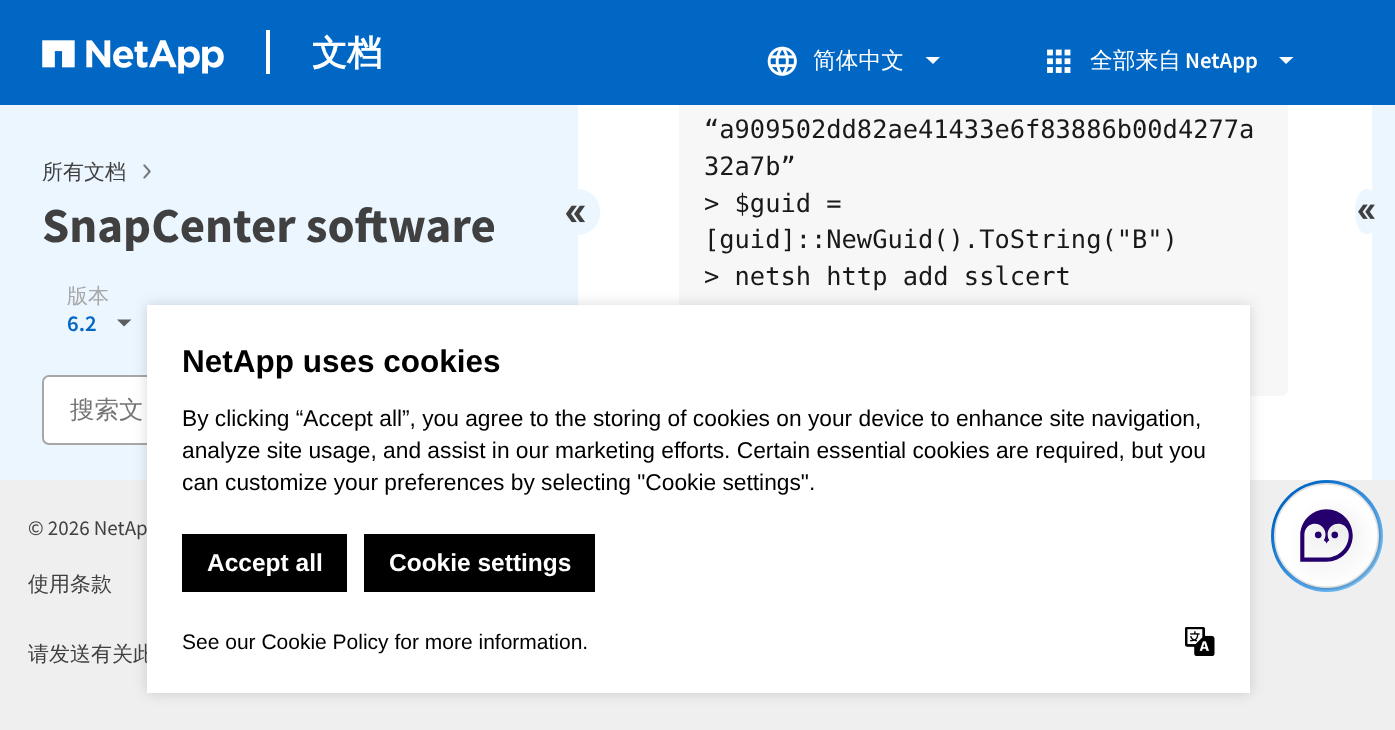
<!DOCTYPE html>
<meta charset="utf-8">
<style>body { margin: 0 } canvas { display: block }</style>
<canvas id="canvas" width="1395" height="730"></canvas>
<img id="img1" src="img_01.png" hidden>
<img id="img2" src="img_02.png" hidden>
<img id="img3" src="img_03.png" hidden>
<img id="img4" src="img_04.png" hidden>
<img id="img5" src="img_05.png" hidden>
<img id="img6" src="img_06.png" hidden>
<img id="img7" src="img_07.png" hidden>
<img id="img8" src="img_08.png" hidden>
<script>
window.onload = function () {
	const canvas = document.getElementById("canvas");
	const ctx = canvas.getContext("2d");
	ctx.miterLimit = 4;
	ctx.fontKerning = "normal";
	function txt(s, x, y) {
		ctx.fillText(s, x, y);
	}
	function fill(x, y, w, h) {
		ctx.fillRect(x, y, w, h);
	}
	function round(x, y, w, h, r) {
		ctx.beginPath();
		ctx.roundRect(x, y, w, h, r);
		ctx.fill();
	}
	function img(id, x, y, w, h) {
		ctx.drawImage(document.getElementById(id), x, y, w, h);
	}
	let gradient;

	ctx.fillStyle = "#FFFFFF";
	fill(0, 0, 1395, 730);
	ctx.fillStyle = "#F7F7F8";
	round(679, 49, 609, 347, 7);
	ctx.fillStyle = "#0067C5";
	fill(0, 0, 1395, 105);
	img("img1", 42, 40, 182, 34);
	ctx.fillStyle = "#FFFFFF";
	fill(266, 30, 4, 44);
	img("img2", 767, 46, 30, 30);
	ctx.fillStyle = "#FDFDFD";
	ctx.beginPath();
	ctx.moveTo(933, 64);
	ctx.lineTo(925.5, 57);
	ctx.lineTo(940, 57);
	ctx.closePath();
	ctx.fill();
	img("img3", 1047, 49, 24, 24);
	ctx.beginPath();
	ctx.moveTo(1286, 64);
	ctx.lineTo(1279, 57);
	ctx.lineTo(1293.5, 57);
	ctx.closePath();
	ctx.fill();
	ctx.fillStyle = "#ECF6FF";
	fill(0, 105, 578, 375);
	img("img4", 143, 164, 8, 15);
	round(555, 189, 45, 46, 22.5);
	img("img5", 565, 205, 20, 18);
	ctx.fillStyle = "#5E5E5E";
	ctx.beginPath();
	ctx.moveTo(124, 326.5);
	ctx.lineTo(117, 319.5);
	ctx.lineTo(131.5, 319.5);
	ctx.closePath();
	ctx.fill();
	ctx.fillStyle = "#FFFFFF";
	ctx.beginPath();
	ctx.roundRect(43, 376, 492, 68, 6);
	ctx.fill();
	ctx.strokeStyle = "#A7A7A7";
	ctx.lineWidth = 2;
	ctx.stroke();
	ctx.fillStyle = "#ECF6FF";
	fill(1372, 105, 23, 375);
	ctx.beginPath();
	ctx.moveTo(1367, 234);
	ctx.bezierCurveTo(1351, 234, 1351, 189, 1367, 189);
	ctx.bezierCurveTo(1383, 189, 1383, 234, 1367, 234);
	ctx.closePath();
	ctx.fill();
	img("img6", 1358, 204, 17, 15);
	ctx.fillStyle = "#EFEFEF";
	fill(0, 480, 1395, 250);
	gradient = ctx.createLinearGradient(1271, 480, 1383, 592);
	gradient.addColorStop(0.18, "#0067C5");
	gradient.addColorStop(0.89, "#7AC3FA");
	ctx.fillStyle = gradient;
	ctx.beginPath();
	ctx.arc(1327, 536, 56, 0, Math.PI * 2);
	ctx.fill();
	img("img7", 1274, 483, 107, 107);
	ctx.fillStyle = "rgba(0, 0, 0, 0.15)";
	ctx.filter = "blur(7px)";
	ctx.beginPath();
	ctx.rect(147, 305, 1103, 388);
	ctx.fill();
	ctx.filter = "none";
	ctx.font = "bold 35px WenQuanYi Zen Hei";
	ctx.fillStyle = "#FFFFFF";
	txt("文档", 312, 65);
	ctx.font = "500 22.75px WenQuanYi Zen Hei";
	txt("简体中文", 813, 68);
	txt("全部来自", 1090, 68);
	ctx.font = "600 22.75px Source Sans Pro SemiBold";
	txt("NetApp", 1185, 68);
	ctx.font = "500 21px WenQuanYi Zen Hei";
	ctx.fillStyle = "#404040";
	txt("所有文档", 42, 179);
	ctx.font = "bold 49px Source Sans Pro";
	txt("SnapCenter software", 42, 242);
	ctx.font = "500 21px WenQuanYi Zen Hei";
	ctx.fillStyle = "#A7A7A7";
	txt("版本", 67, 303);
	ctx.font = "600 22.75px Source Sans Pro SemiBold";
	ctx.fillStyle = "#0067C5";
	txt("6.2", 67, 331);
	ctx.font = "500 24.5px WenQuanYi Zen Hei";
	ctx.fillStyle = "#757575";
	txt("搜索文", 70, 418);
	ctx.font = "25.4px DejaVu Sans Mono";
	ctx.fillStyle = "#191919";
	txt("“a909502dd82ae41433e6f83886b00d4277a", 704, 138);
	txt("32a7b”", 704, 175);
	txt("> $guid =", 704, 212);
	txt("[guid]::NewGuid().ToString(\"B\")", 704, 248);
	txt("> netsh http add sslcert", 704, 285);
	ctx.font = "21px Source Sans Pro";
	ctx.fillStyle = "#404040";
	txt("© 2026 NetAp", 28, 535);
	ctx.font = "500 21px WenQuanYi Zen Hei";
	txt("使用条款", 28, 591);
	txt("请发送有关此", 28, 661);
	ctx.fillStyle = "#FFFFFF";
	fill(147, 305, 1103, 388);
	ctx.font = "bold 31.5px Liberation Sans";
	ctx.fillStyle = "#000000";
	txt("NetApp uses cookies", 182, 372);
	ctx.font = "22.75px Liberation Sans";
	txt("By clicking “Accept all”, you agree to the storing of cookies on your device to enhance site navigation,", 182, 426);
	txt("analyze site usage, and assist in our marketing efforts. Certain essential cookies are required, but you", 182, 458);
	txt("can customize your preferences by selecting \"Cookie settings\".", 182, 490);
	fill(182, 534, 165, 58);
	ctx.font = "bold 24.5px Liberation Sans";
	ctx.fillStyle = "#FFFFFF";
	txt("Accept all", 207, 571);
	ctx.fillStyle = "#000000";
	fill(364, 534, 231, 58);
	ctx.fillStyle = "#FFFFFF";
	txt("Cookie settings", 389, 571);
	ctx.font = "21px Liberation Sans";
	ctx.fillStyle = "#000000";
	txt("See our Cookie Policy for more information.", 182, 649);
	img("img8", 1185, 627, 30, 29);
};
</script>
